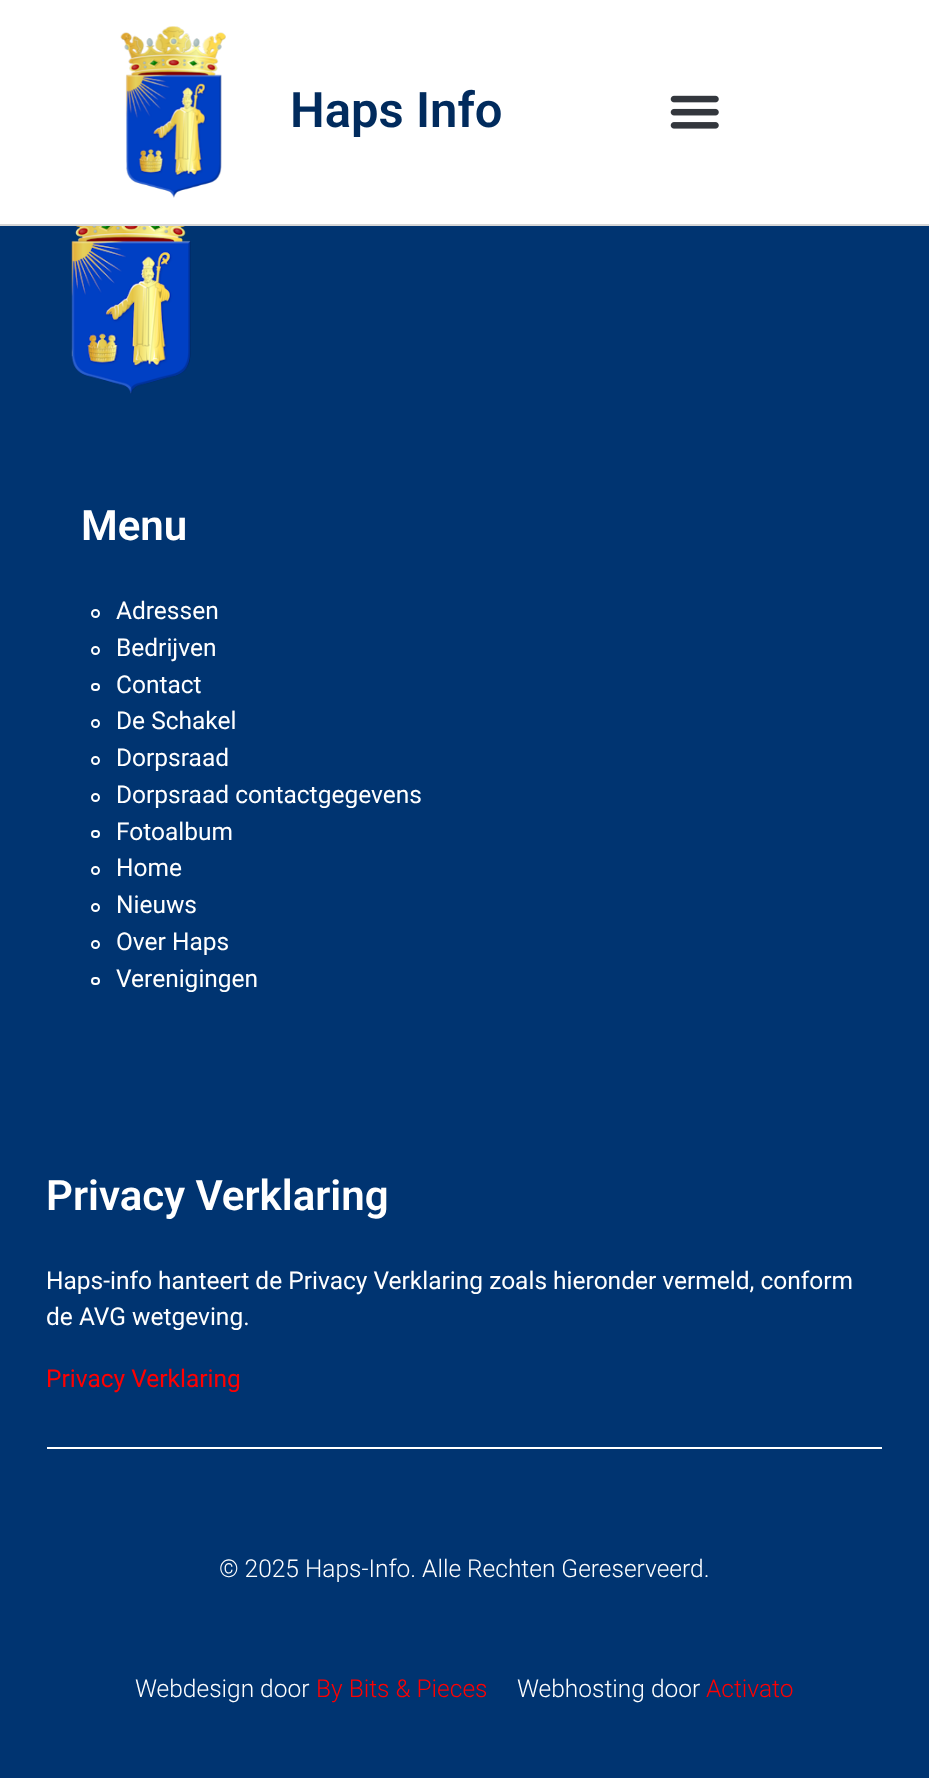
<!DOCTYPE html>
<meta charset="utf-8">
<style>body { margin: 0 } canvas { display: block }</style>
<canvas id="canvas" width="929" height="1778"></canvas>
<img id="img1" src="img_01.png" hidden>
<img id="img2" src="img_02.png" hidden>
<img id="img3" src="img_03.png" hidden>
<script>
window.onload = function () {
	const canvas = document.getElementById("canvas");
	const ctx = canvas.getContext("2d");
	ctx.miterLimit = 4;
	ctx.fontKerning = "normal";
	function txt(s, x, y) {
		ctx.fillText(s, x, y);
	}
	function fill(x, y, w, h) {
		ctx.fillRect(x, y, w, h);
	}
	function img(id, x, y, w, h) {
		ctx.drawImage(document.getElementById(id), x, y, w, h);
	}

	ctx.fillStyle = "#003471";
	fill(0, 0, 929, 1778);
	ctx.fillStyle = "#FFFFFF";
	fill(0, 0, 929, 224);
	ctx.fillStyle = "#D6D6D6";
	fill(0, 224, 929, 2);
	img("img1", 120, 26, 106, 172);
	img("img2", 670, 95, 49, 34);
	img("img3", 71, 226, 120, 168);
	ctx.beginPath();
	ctx.arc(95.5, 613.5, 3.5, 0, Math.PI * 2);
	ctx.strokeStyle = "#FFFFFF";
	ctx.lineWidth = 2;
	ctx.stroke();
	ctx.beginPath();
	ctx.arc(95.5, 650.5, 3.5, 0, Math.PI * 2);
	ctx.stroke();
	ctx.beginPath();
	ctx.roundRect(92, 684, 7, 6, 3);
	ctx.stroke();
	ctx.beginPath();
	ctx.arc(95.5, 723.5, 3.5, 0, Math.PI * 2);
	ctx.stroke();
	ctx.beginPath();
	ctx.arc(95.5, 760.5, 3.5, 0, Math.PI * 2);
	ctx.stroke();
	ctx.beginPath();
	ctx.arc(95.5, 797.5, 3.5, 0, Math.PI * 2);
	ctx.stroke();
	ctx.beginPath();
	ctx.roundRect(92, 831, 7, 6, 3);
	ctx.stroke();
	ctx.beginPath();
	ctx.arc(95.5, 870.5, 3.5, 0, Math.PI * 2);
	ctx.stroke();
	ctx.beginPath();
	ctx.arc(95.5, 907.5, 3.5, 0, Math.PI * 2);
	ctx.stroke();
	ctx.beginPath();
	ctx.arc(95.5, 944.5, 3.5, 0, Math.PI * 2);
	ctx.stroke();
	ctx.beginPath();
	ctx.roundRect(92, 978, 7, 6, 3);
	ctx.stroke();
	ctx.fillStyle = "#FFFFFF";
	fill(47, 1447, 835, 2);
	ctx.font = "600 49px Roboto";
	ctx.fillStyle = "#012B5D";
	txt("Haps Info", 290, 127);
	ctx.font = "600 42px Roboto";
	ctx.fillStyle = "#FFFFFF";
	txt("Menu", 81, 540);
	ctx.font = "24.5px Roboto";
	txt("Adressen", 116, 619);
	txt("Bedrijven", 116, 656);
	txt("Contact", 116, 693);
	txt("De Schakel", 116, 729);
	txt("Dorpsraad", 116, 766);
	txt("Dorpsraad contactgegevens", 116, 803);
	txt("Fotoalbum", 116, 840);
	txt("Home", 116, 876);
	txt("Nieuws", 116, 913);
	txt("Over Haps", 116, 950);
	txt("Verenigingen", 116, 987);
	ctx.font = "600 42px Roboto";
	txt("Privacy Verklaring", 46, 1210);
	ctx.font = "24.5px Roboto";
	txt("Haps-info hanteert de Privacy Verklaring zoals hieronder vermeld, conform", 46, 1289);
	txt("de AVG wetgeving.", 46, 1325);
	ctx.fillStyle = "#FF0000";
	txt("Privacy Verklaring", 46, 1387);
	ctx.font = "300 24.5px Roboto";
	ctx.fillStyle = "#FFFFFF";
	txt("© 2025 Haps-Info. Alle Rechten Gereserveerd.", 219, 1577);
	txt("Webdesign door", 135, 1697);
	ctx.fillStyle = "#FF0000";
	txt("By Bits & Pieces", 316, 1697);
	ctx.fillStyle = "#FFFFFF";
	txt("Webhosting door", 517, 1697);
	ctx.fillStyle = "#FF0000";
	txt("Activato", 706, 1697);
};
</script>
